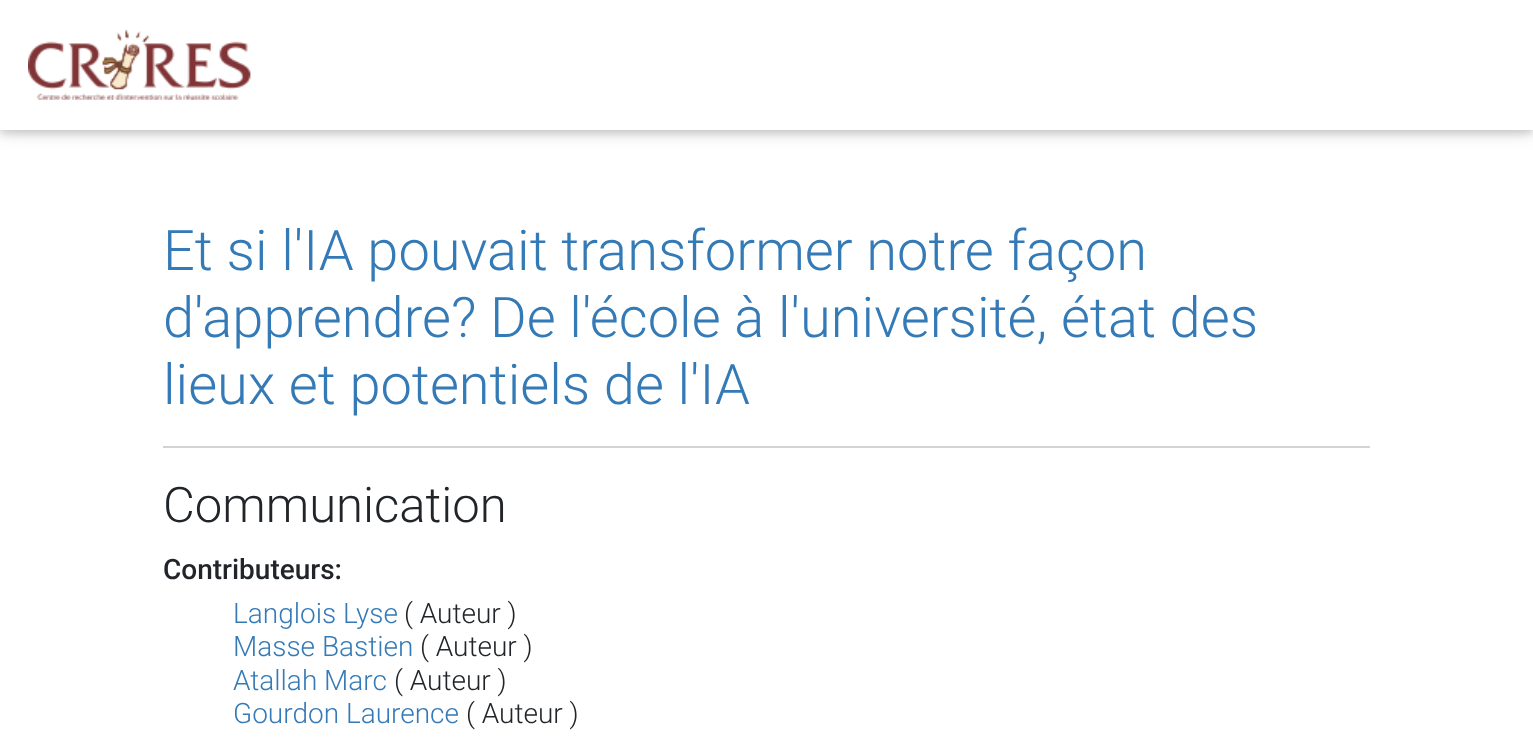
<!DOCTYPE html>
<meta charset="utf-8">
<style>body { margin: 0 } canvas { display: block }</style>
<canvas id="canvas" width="1533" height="745"></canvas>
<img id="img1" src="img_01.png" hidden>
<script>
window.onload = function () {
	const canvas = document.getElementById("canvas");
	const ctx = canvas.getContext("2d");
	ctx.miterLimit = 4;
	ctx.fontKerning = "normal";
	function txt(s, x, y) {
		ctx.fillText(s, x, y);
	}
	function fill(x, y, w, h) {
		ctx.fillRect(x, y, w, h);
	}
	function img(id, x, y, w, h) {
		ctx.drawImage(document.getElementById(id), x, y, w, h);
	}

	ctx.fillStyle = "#FFFFFF";
	fill(0, 0, 1533, 745);
	ctx.fillStyle = "rgba(0, 0, 0, 0.12)";
	ctx.filter = "blur(9px)";
	ctx.beginPath();
	ctx.rect(0, 4, 1533, 129);
	ctx.fill();
	ctx.filter = "none";
	ctx.fillStyle = "rgba(0, 0, 0, 0.16)";
	ctx.filter = "blur(4.5px)";
	ctx.beginPath();
	ctx.rect(0, 4, 1533, 129);
	ctx.fill();
	ctx.filter = "none";
	ctx.fillStyle = "#FFFFFF";
	fill(0, 0, 1533, 130);
	img("img1", 28, 29, 223, 71);
	ctx.fillStyle = "#D3D3D3";
	fill(163, 446, 1207, 2);
	ctx.font = "300 56px Roboto";
	ctx.fillStyle = "#337AB7";
	txt("Et si l'IA pouvait transformer notre façon", 163, 270);
	txt("d'apprendre? De l'école à l'université, état des", 163, 337);
	txt("lieux et potentiels de l'IA", 163, 404);
	ctx.font = "300 49px Roboto";
	ctx.fillStyle = "#212529";
	txt("Communication", 163, 522);
	ctx.font = "500 28px Roboto";
	txt("Contributeurs:", 163, 579);
	ctx.font = "300 28px Roboto";
	ctx.fillStyle = "#337AB7";
	txt("Langlois Lyse", 233, 623);
	ctx.fillStyle = "#212529";
	txt("( Auteur )", 404, 623);
	ctx.fillStyle = "#337AB7";
	txt("Masse Bastien", 233, 656);
	ctx.fillStyle = "#212529";
	txt("( Auteur )", 420, 656);
	ctx.fillStyle = "#337AB7";
	txt("Atallah Marc", 233, 690);
	ctx.fillStyle = "#212529";
	txt("( Auteur )", 394, 690);
	ctx.fillStyle = "#337AB7";
	txt("Gourdon Laurence", 233, 723);
	ctx.fillStyle = "#212529";
	txt("( Auteur )", 466, 723);
};
</script>
